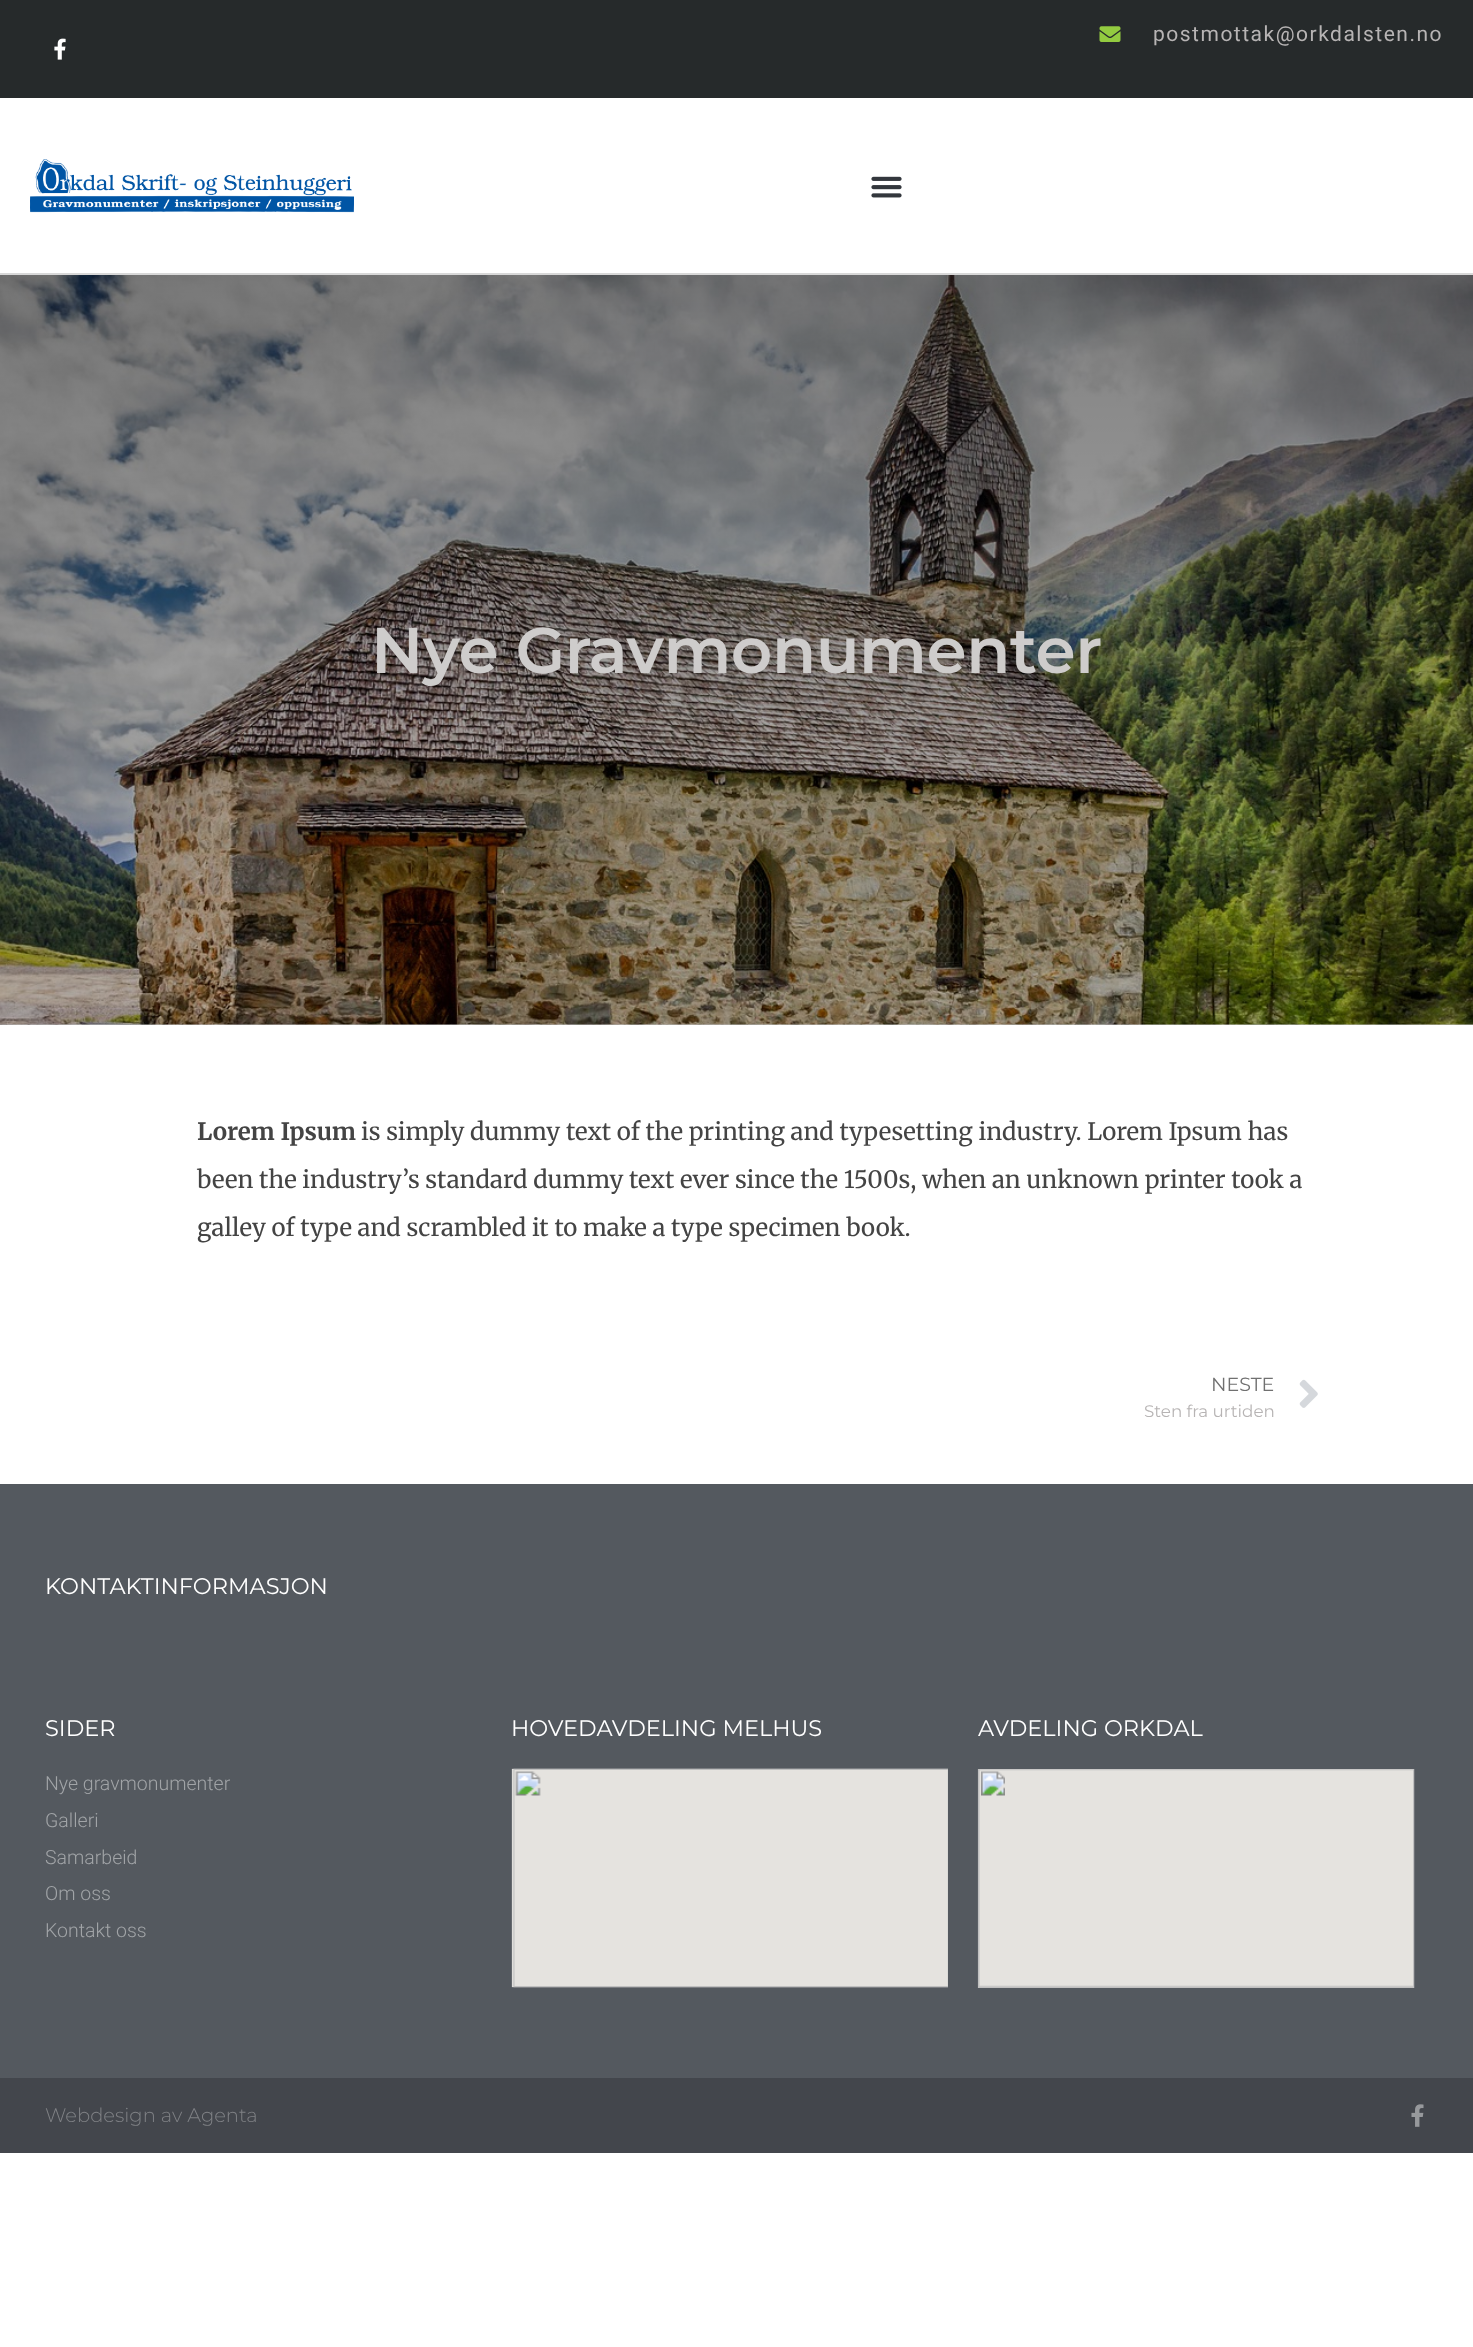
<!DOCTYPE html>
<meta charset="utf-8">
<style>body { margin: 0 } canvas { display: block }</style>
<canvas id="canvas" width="1473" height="2347"></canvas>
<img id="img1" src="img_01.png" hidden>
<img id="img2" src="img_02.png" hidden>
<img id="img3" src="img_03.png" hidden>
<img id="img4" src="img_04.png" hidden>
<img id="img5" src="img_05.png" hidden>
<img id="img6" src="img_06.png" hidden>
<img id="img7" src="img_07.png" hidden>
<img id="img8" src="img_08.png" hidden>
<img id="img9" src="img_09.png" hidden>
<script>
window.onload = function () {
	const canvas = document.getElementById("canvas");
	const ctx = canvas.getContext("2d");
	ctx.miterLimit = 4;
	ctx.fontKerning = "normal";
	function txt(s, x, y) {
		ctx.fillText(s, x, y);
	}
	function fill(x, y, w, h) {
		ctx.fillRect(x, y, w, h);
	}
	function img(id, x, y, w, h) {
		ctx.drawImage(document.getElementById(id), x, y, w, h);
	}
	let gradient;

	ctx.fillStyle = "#FFFFFF";
	fill(0, 0, 1473, 2347);
	ctx.fillStyle = "#262A2B";
	fill(0, 0, 1473, 98);
	img("img1", 1099, 26, 22, 16);
	img("img2", 54, 38, 12, 22);
	ctx.fillStyle = "#D8D8D8";
	fill(0, 273, 1473, 2);
	img("img3", 30, 159, 324, 54);
	img("img4", 871, 176, 31, 22);
	img("img5", 0, 275, 1473, 750);
	gradient = ctx.createLinearGradient(736, 274, 737, 1025);
	gradient.addColorStop(0, "rgba(0, 0, 0, 0.5)");
	gradient.addColorStop(1, "rgba(0, 0, 0, 0.25)");
	ctx.fillStyle = gradient;
	fill(0, 275, 1473, 750);
	img("img6", 1299, 1379, 19, 29);
	ctx.fillStyle = "#54595F";
	fill(0, 1484, 1473, 594);
	img("img7", 511, 1768, 437, 220);
	img("img8", 977, 1769, 438, 219);
	ctx.fillStyle = "#43464C";
	fill(0, 2078, 1473, 75);
	img("img9", 1411, 2104, 13, 23);
	ctx.letterSpacing = "1.5px";
	ctx.font = "21px Roboto";
	ctx.fillStyle = "#B7B4B4";
	txt("postmottak@orkdalsten.no", 1153, 41);
	ctx.letterSpacing = "-0.5px";
	ctx.font = "600 64.5px Montserrat";
	ctx.fillStyle = "#CECCCB";
	txt("Nye Gravmonumenter", 371, 673);
	ctx.letterSpacing = "0px";
	ctx.font = "bold 24px Merriweather";
	ctx.fillStyle = "#444444";
	txt("Lorem Ipsum", 197, 1140);
	ctx.font = "24px Merriweather";
	txt("is simply dummy text of the printing and typesetting industry. Lorem Ipsum has", 361, 1140);
	txt("been the industry’s standard dummy text ever since the 1500s, when an unknown printer took a", 197, 1188);
	txt("galley of type and scrambled it to make a type specimen book.", 197, 1236);
	ctx.font = "19px Montserrat";
	ctx.fillStyle = "#707070";
	txt("NESTE", 1211, 1391);
	ctx.font = "16.75px Montserrat";
	ctx.fillStyle = "#B7B4B4";
	txt("Sten fra urtiden", 1144, 1417);
	ctx.font = "22.5px Montserrat";
	ctx.fillStyle = "#FFFFFF";
	txt("KONTAKTINFORMASJON", 45, 1594);
	txt("SIDER", 45, 1736);
	ctx.font = "300 19.5px Roboto";
	ctx.fillStyle = "#A1A4A7";
	txt("Nye gravmonumenter", 45, 1790);
	txt("Galleri", 45, 1827);
	txt("Samarbeid", 45, 1864);
	txt("Om oss", 45, 1900);
	txt("Kontakt oss", 45, 1937);
	ctx.font = "22.5px Montserrat";
	ctx.fillStyle = "#FFFFFF";
	txt("HOVEDAVDELING MELHUS", 511, 1736);
	txt("AVDELING ORKDAL", 978, 1736);
	ctx.font = "300 19.5px Montserrat";
	ctx.fillStyle = "#7F8185";
	txt("Webdesign av Agenta", 45, 2122);
};
</script>
